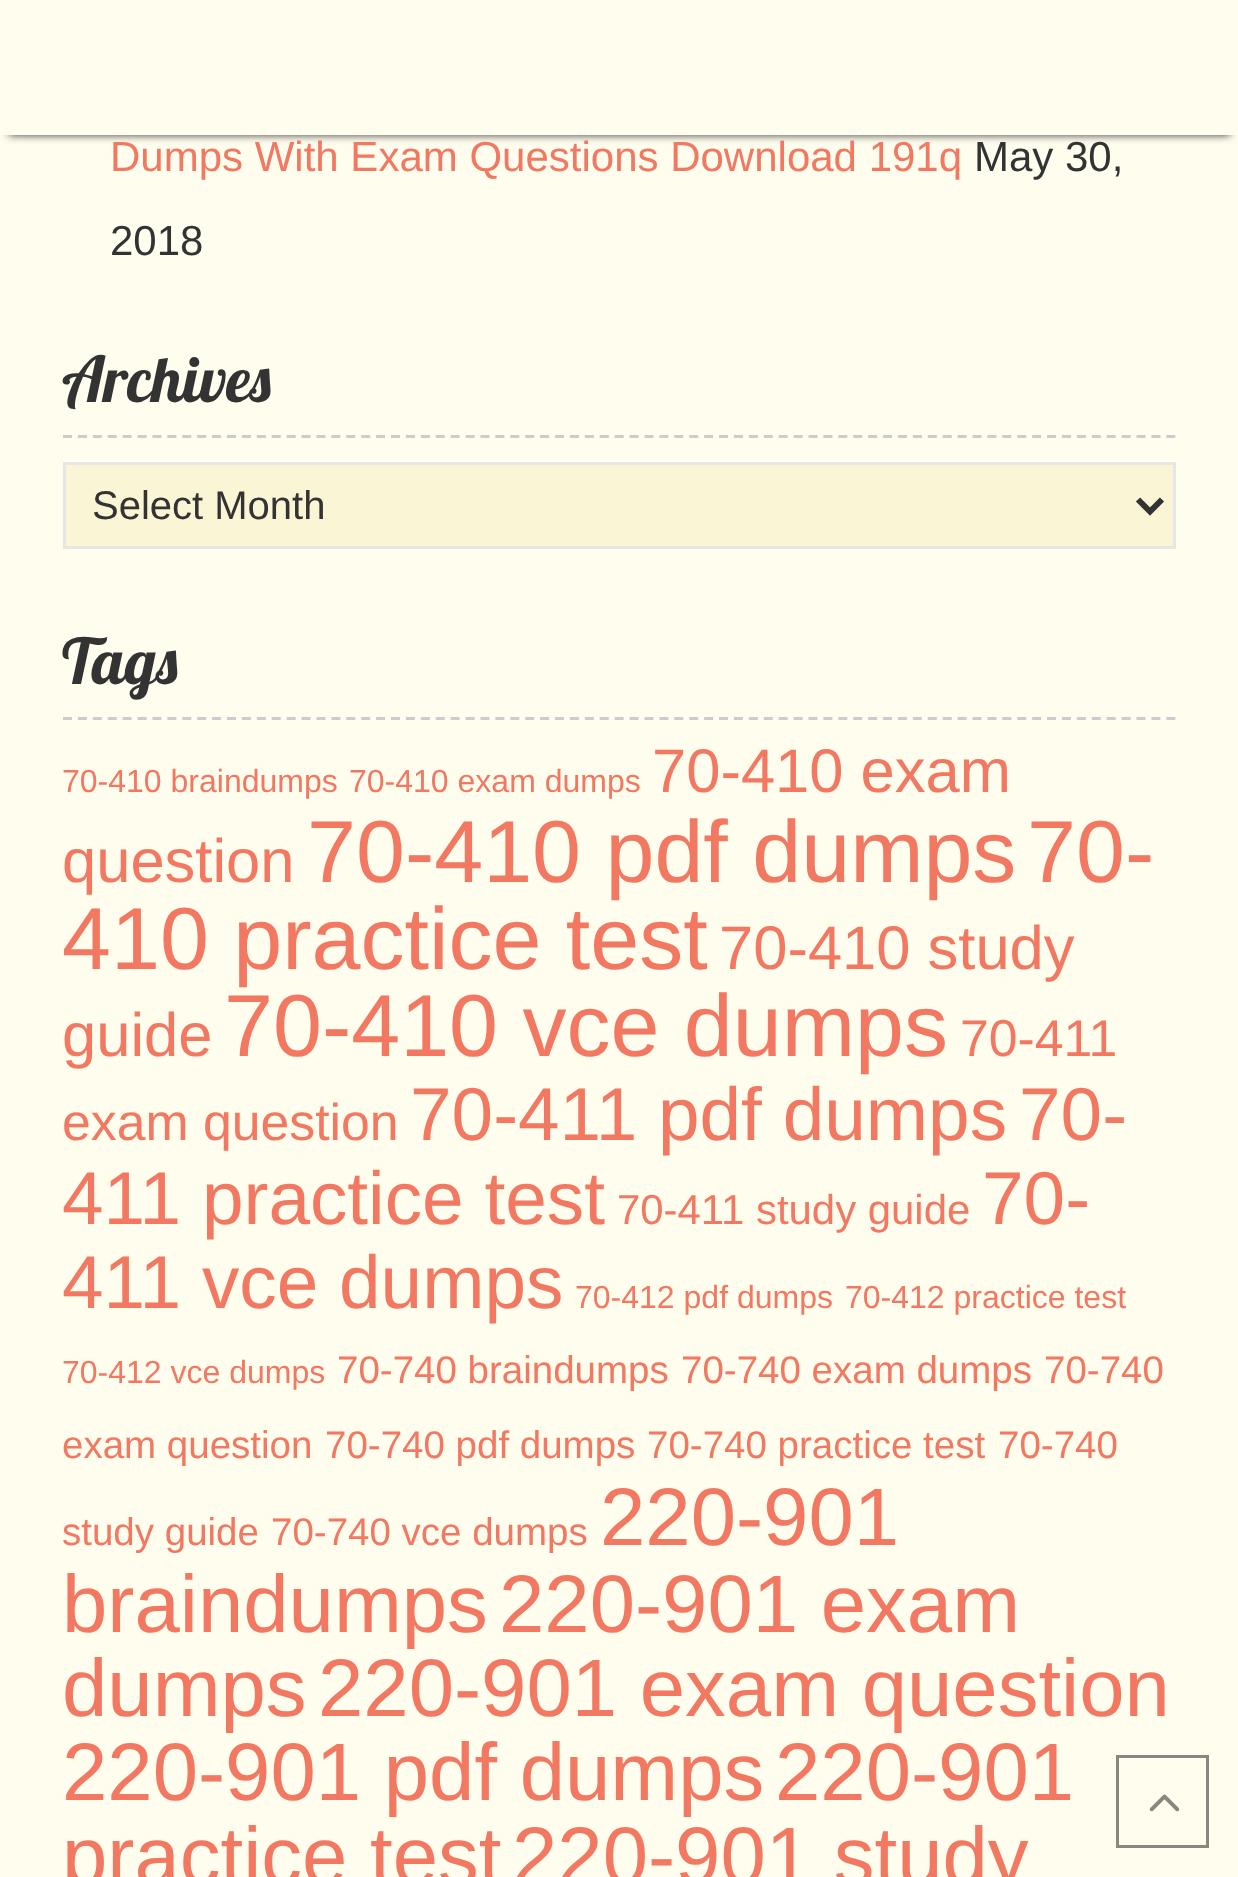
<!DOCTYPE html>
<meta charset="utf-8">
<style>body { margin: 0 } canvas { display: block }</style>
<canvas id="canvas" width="1238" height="1877"></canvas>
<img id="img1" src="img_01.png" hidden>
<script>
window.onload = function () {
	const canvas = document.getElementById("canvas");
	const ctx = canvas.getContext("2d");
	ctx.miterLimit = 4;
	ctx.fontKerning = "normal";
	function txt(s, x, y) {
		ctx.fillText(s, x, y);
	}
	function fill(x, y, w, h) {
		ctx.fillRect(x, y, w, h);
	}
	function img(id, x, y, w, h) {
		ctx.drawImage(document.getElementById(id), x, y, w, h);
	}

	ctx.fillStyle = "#FFFDEE";
	fill(0, 0, 1238, 1877);
	ctx.fillStyle = "#333333";
	ctx.filter = "blur(4.5px)";
	ctx.beginPath();
	ctx.rect(9, 18, 1221, 117);
	ctx.fill();
	ctx.filter = "none";
	ctx.fillStyle = "#FFFDEE";
	fill(0, 8, 1238, 127);
	ctx.beginPath();
	ctx.moveTo(63, 436.5);
	ctx.lineTo(1176, 436.5);
	ctx.strokeStyle = "#CCCCCC";
	ctx.lineWidth = 3;
	ctx.setLineDash([9, 5.91]);
	ctx.stroke();
	ctx.fillStyle = "#FAF5D4";
	ctx.beginPath();
	ctx.rect(64.5, 463.5, 1110, 84);
	ctx.fill();
	ctx.strokeStyle = "#E6E6E6";
	ctx.setLineDash([]);
	ctx.stroke();
	ctx.beginPath();
	ctx.moveTo(1138, 499.5);
	ctx.lineTo(1150, 511.5);
	ctx.lineTo(1162, 499.5);
	ctx.strokeStyle = "#333333";
	ctx.lineWidth = 6;
	ctx.stroke();
	ctx.beginPath();
	ctx.moveTo(63, 718.5);
	ctx.lineTo(1176, 718.5);
	ctx.strokeStyle = "#CCCCCC";
	ctx.lineWidth = 3;
	ctx.setLineDash([9, 5.91]);
	ctx.stroke();
	ctx.strokeStyle = "#888780";
	ctx.setLineDash([]);
	ctx.strokeRect(1117.5, 1756.5, 90, 90);
	img("img1", 1149, 1794, 31, 18);
	ctx.font = "42px Liberation Sans";
	ctx.fillStyle = "#F27862";
	txt("Dumps With Exam Questions Download 191q", 110, 171);
	ctx.fillStyle = "#333333";
	txt("May 30,", 974, 171);
	txt("2018", 110, 255);
	ctx.font = "63px Lobster";
	txt("Archives", 62, 402);
	ctx.font = "40px Liberation Sans";
	txt("Select Month", 92, 519);
	ctx.font = "63px Lobster";
	txt("Tags", 62, 684);
	ctx.font = "32px Liberation Sans";
	ctx.fillStyle = "#F27862";
	txt("70-410 braindumps", 62, 792);
	txt("70-410 exam dumps", 349, 792);
	ctx.font = "61.5px Liberation Sans";
	txt("70-410 exam", 652, 792);
	txt("question", 62, 882);
	ctx.font = "88px Liberation Sans";
	txt("70-410 pdf dumps", 307, 882);
	txt("70-", 1027, 882);
	txt("410 practice test", 62, 969);
	ctx.font = "61.5px Liberation Sans";
	txt("70-410 study", 719, 969);
	txt("guide", 62, 1056);
	ctx.font = "88px Liberation Sans";
	txt("70-410 vce dumps", 224, 1056);
	ctx.font = "51.75px Liberation Sans";
	txt("70-411", 960, 1056);
	txt("exam question", 62, 1140);
	ctx.font = "74.75px Liberation Sans";
	txt("70-411 pdf dumps", 410, 1140);
	txt("70-", 1019, 1140);
	txt("411 practice test", 62, 1224);
	ctx.font = "41.9px Liberation Sans";
	txt("70-411 study guide", 617, 1224);
	ctx.font = "74.75px Liberation Sans";
	txt("70-", 982, 1224);
	txt("411 vce dumps", 62, 1308);
	ctx.font = "32px Liberation Sans";
	txt("70-412 pdf dumps", 575, 1308);
	txt("70-412 practice test", 845, 1308);
	txt("70-412 vce dumps", 62, 1383);
	ctx.font = "38.5px Liberation Sans";
	txt("70-740 braindumps", 337, 1383);
	txt("70-740 exam dumps", 681, 1383);
	txt("70-740", 1044, 1383);
	txt("exam question", 62, 1458);
	txt("70-740 pdf dumps", 325, 1458);
	txt("70-740 practice test", 647, 1458);
	txt("70-740", 998, 1458);
	txt("study guide", 62, 1545);
	txt("70-740 vce dumps", 271, 1545);
	ctx.font = "81.5px Liberation Sans";
	txt("220-901", 600, 1545);
	txt("braindumps", 62, 1632);
	txt("220-901 exam", 499, 1632);
	txt("dumps", 62, 1716);
	txt("220-901 exam question", 318, 1716);
	txt("220-901 pdf dumps", 62, 1800);
	txt("220-901", 775, 1800);
	txt("practice test", 62, 1884);
	txt("220-901 study", 512, 1884);
};
</script>
